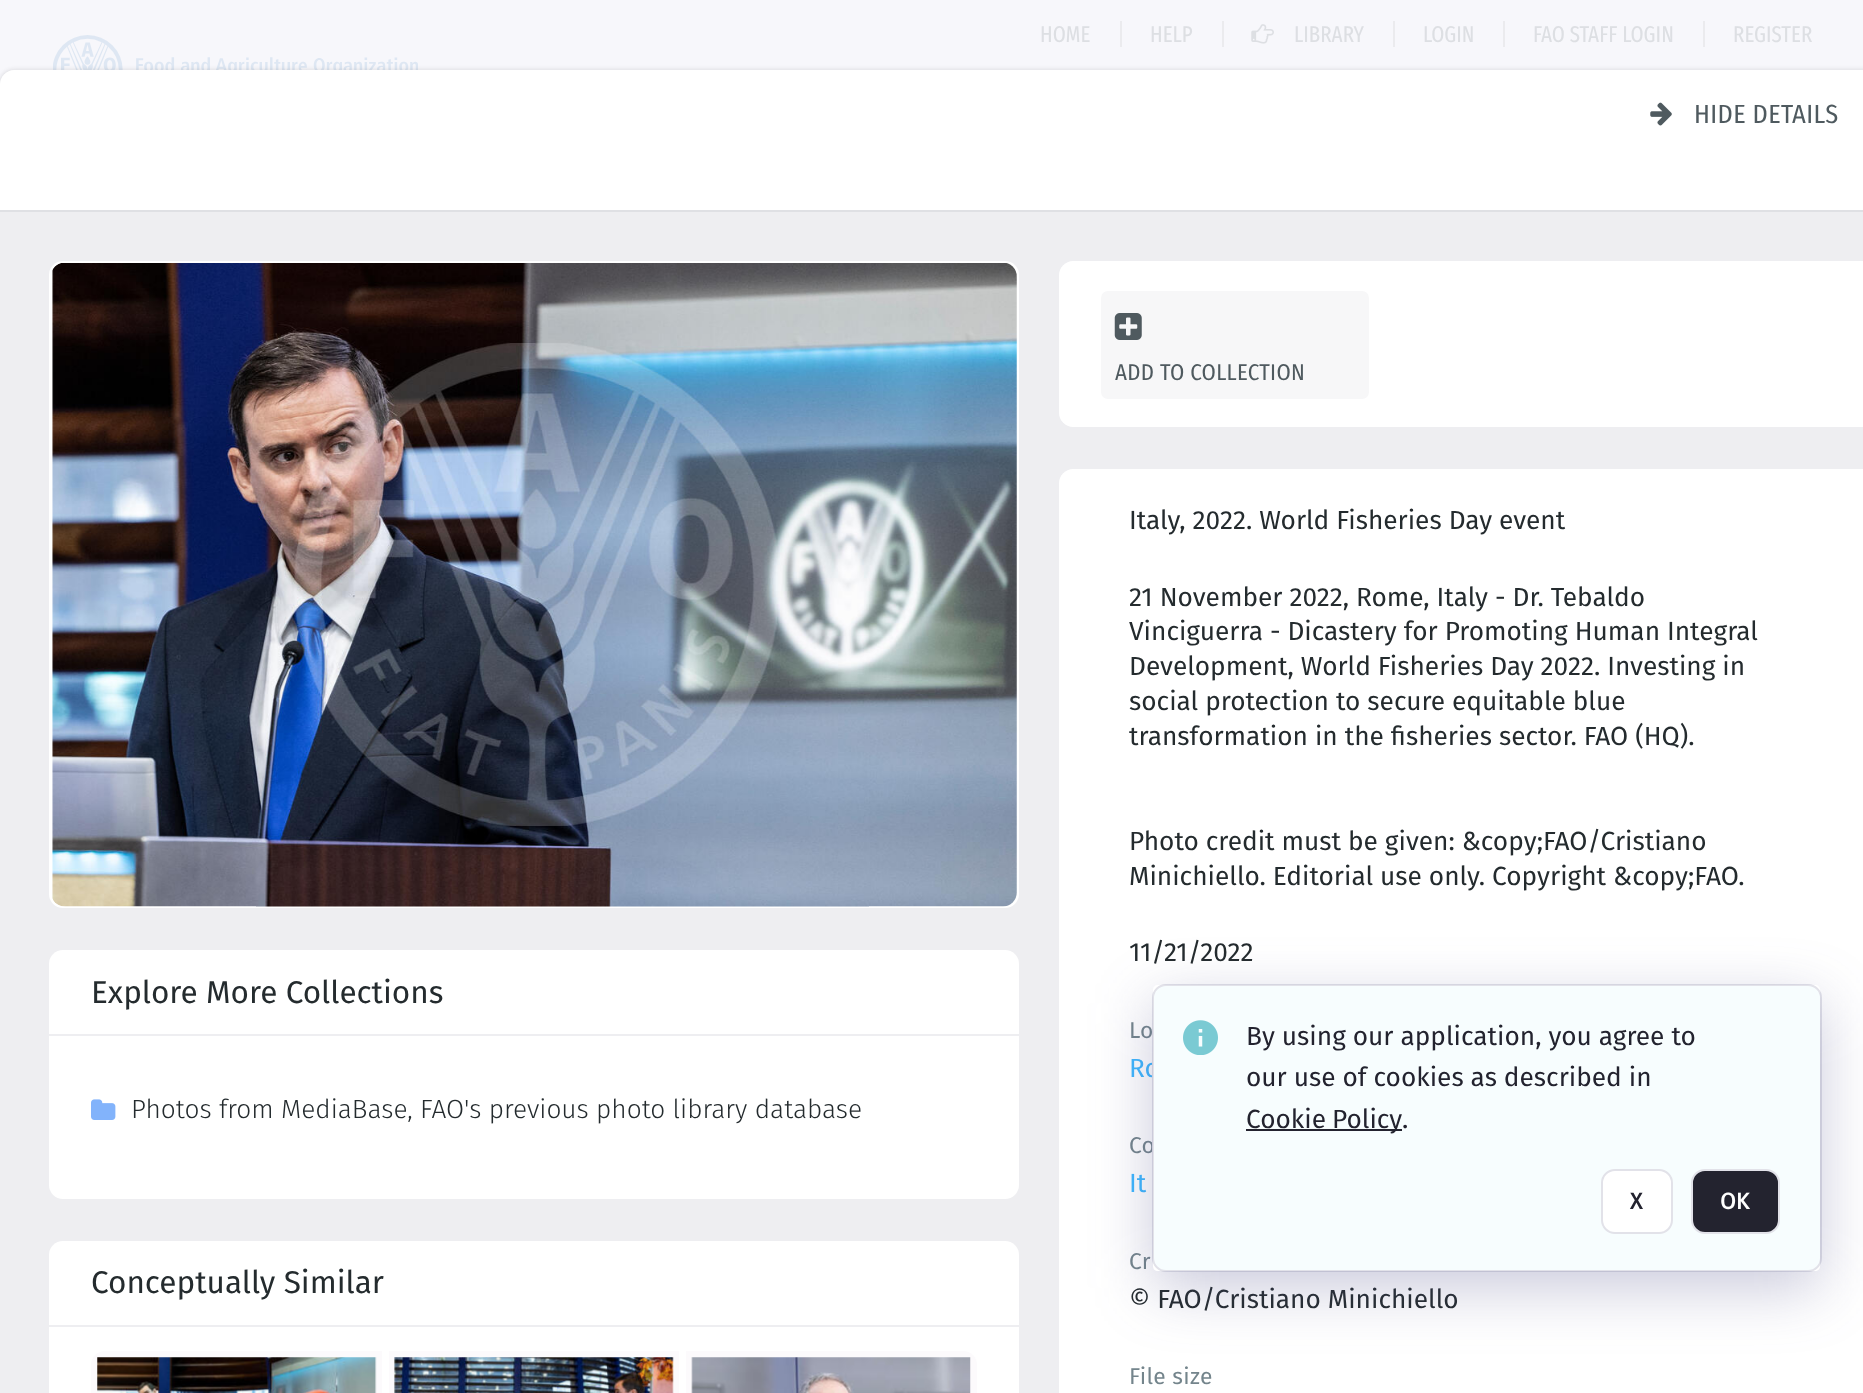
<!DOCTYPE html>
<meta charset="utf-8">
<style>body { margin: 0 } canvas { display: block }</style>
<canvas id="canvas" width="1863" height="1393"></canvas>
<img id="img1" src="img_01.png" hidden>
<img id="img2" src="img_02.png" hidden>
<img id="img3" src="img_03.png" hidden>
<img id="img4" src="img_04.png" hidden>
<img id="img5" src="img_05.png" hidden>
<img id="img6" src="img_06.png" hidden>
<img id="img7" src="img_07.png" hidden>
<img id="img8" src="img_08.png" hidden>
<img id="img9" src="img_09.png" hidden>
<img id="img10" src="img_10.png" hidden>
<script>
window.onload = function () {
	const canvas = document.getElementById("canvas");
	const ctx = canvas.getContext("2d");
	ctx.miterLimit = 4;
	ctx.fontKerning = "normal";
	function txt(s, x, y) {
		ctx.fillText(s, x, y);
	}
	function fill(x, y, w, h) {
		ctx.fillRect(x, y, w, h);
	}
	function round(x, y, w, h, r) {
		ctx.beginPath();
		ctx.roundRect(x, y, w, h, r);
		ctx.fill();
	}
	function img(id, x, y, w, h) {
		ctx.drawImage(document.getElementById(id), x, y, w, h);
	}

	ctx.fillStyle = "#F7F7FB";
	fill(0, 0, 1863, 1393);
	img("img1", 53, 35, 365, 35);
	ctx.fillStyle = "#EBEBEE";
	fill(1120, 21, 2, 26);
	fill(1222, 21, 2, 26);
	img("img2", 1251, 24, 23, 20);
	fill(1393, 21, 2, 26);
	fill(1503, 21, 2, 26);
	fill(1703, 21, 2, 26);
	ctx.fillStyle = "rgba(0, 0, 0, 0.06)";
	ctx.filter = "blur(2px)";
	ctx.beginPath();
	ctx.roundRect(0, 70, 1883, 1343, 14);
	ctx.fill();
	ctx.filter = "none";
	ctx.fillStyle = "rgba(0, 0, 0, 0.08)";
	ctx.filter = "blur(2.5px)";
	ctx.beginPath();
	ctx.roundRect(0, 70, 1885, 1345, 14);
	ctx.fill();
	ctx.filter = "none";
	ctx.fillStyle = "#FFFFFF";
	ctx.beginPath();
	ctx.moveTo(14, 70);
	ctx.lineTo(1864, 70);
	ctx.lineTo(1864, 1393);
	ctx.lineTo(0, 1393);
	ctx.lineTo(0, 84);
	ctx.bezierCurveTo(0, 76.5, 6.5, 70, 14, 70);
	ctx.closePath();
	ctx.fill();
	img("img3", 1650, 102, 22, 24);
	ctx.fillStyle = "#DFE0E4";
	fill(0, 210, 1863, 2);
	ctx.fillStyle = "#EEEEF1";
	fill(0, 212, 1863, 1181);
	ctx.fillStyle = "#FFFFFF";
	round(49, 261, 970, 647, 14);
	img("img4", 52, 263, 965, 644);
	round(49, 950, 970, 249, 14);
	img("img5", 91, 1099, 25, 21);
	ctx.fillStyle = "#EEEEF1";
	fill(49, 1034, 970, 2);
	ctx.fillStyle = "#FFFFFF";
	ctx.beginPath();
	ctx.roundRect(49, 1241, 970, 152, [14, 14, 0, 0]);
	ctx.fill();
	ctx.fillStyle = "#FCFAFC";
	ctx.beginPath();
	ctx.roundRect(91, 1351, 291, 42, [14, 0, 0, 0]);
	ctx.fill();
	img("img6", 97, 1357, 280, 36);
	fill(389, 1351, 290, 42);
	img("img7", 394, 1357, 280, 36);
	ctx.beginPath();
	ctx.roundRect(686, 1351, 291, 42, [0, 14, 0, 0]);
	ctx.fill();
	img("img8", 691, 1357, 280, 36);
	ctx.fillStyle = "#EEEEF1";
	fill(49, 1325, 970, 2);
	ctx.fillStyle = "#FFFFFF";
	ctx.beginPath();
	ctx.moveTo(1073, 261);
	ctx.lineTo(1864, 261);
	ctx.lineTo(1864, 427);
	ctx.lineTo(1073, 427);
	ctx.bezierCurveTo(1065.5, 427, 1059, 420.5, 1059, 413);
	ctx.lineTo(1059, 275);
	ctx.bezierCurveTo(1059, 267.5, 1065.5, 261, 1073, 261);
	ctx.closePath();
	ctx.fill();
	ctx.fillStyle = "#F7F7F8";
	round(1101, 291, 268, 108, 7);
	img("img9", 1114, 313, 28, 27);
	ctx.fillStyle = "#FFFFFF";
	ctx.beginPath();
	ctx.moveTo(1073, 469);
	ctx.lineTo(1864, 469);
	ctx.lineTo(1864, 1393);
	ctx.lineTo(1059, 1393);
	ctx.lineTo(1059, 483);
	ctx.bezierCurveTo(1059, 475.5, 1065.5, 469, 1073, 469);
	ctx.closePath();
	ctx.fill();
	ctx.font = "22.75px Fira Sans Extra Condensed";
	ctx.fillStyle = "#DDDFE3";
	txt("HOME", 1040, 42);
	txt("HELP", 1150, 42);
	txt("LIBRARY", 1294, 42);
	txt("LOGIN", 1423, 42);
	txt("FAO STAFF LOGIN", 1533, 42);
	txt("REGISTER", 1733, 42);
	ctx.letterSpacing = "0.4px";
	ctx.font = "26.25px Fira Sans Condensed";
	ctx.fillStyle = "#4F5A5F";
	txt("HIDE DETAILS", 1694, 123);
	ctx.letterSpacing = "0px";
	ctx.font = "31.5px Fira Sans";
	ctx.fillStyle = "#242B2E";
	txt("Explore More Collections", 91, 1003);
	ctx.font = "300 26.25px Fira Sans";
	txt("Photos from MediaBase, FAO's previous photo library database", 131, 1118);
	ctx.font = "31.5px Fira Sans";
	txt("Conceptually Similar", 91, 1293);
	ctx.letterSpacing = "0.3px";
	ctx.font = "22.75px Fira Sans Condensed";
	ctx.fillStyle = "#4F5A5F";
	txt("ADD TO COLLECTION", 1115, 380);
	ctx.letterSpacing = "0px";
	ctx.font = "26.25px Fira Sans";
	ctx.fillStyle = "#242B2E";
	txt("Italy, 2022. World Fisheries Day event", 1129, 529);
	txt("21 November 2022, Rome, Italy - Dr. Tebaldo", 1129, 606);
	txt("Vinciguerra - Dicastery for Promoting Human Integral", 1129, 640);
	txt("Development, World Fisheries Day 2022. Investing in", 1129, 675);
	txt("social protection to secure equitable blue", 1129, 710);
	txt("transformation in the fisheries sector. FAO (HQ).", 1129, 745);
	txt("Photo credit must be given: &copy;FAO/Cristiano", 1129, 850);
	txt("Minichiello. Editorial use only. Copyright &copy;FAO.", 1129, 885);
	txt("11/21/2022", 1129, 961);
	ctx.letterSpacing = "0.3px";
	ctx.font = "22.75px Fira Sans";
	ctx.fillStyle = "#74858C";
	txt("Lo", 1129, 1038);
	ctx.letterSpacing = "0px";
	ctx.font = "26.25px Fira Sans";
	ctx.fillStyle = "#3DB7FF";
	txt("Ro", 1129, 1077);
	ctx.letterSpacing = "0.3px";
	ctx.font = "22.75px Fira Sans";
	ctx.fillStyle = "#74858C";
	txt("Co", 1129, 1153);
	ctx.letterSpacing = "0px";
	ctx.font = "26.25px Fira Sans";
	ctx.fillStyle = "#3DB7FF";
	txt("It", 1129, 1192);
	ctx.letterSpacing = "0.3px";
	ctx.font = "22.75px Fira Sans";
	ctx.fillStyle = "#74858C";
	txt("Cr", 1129, 1269);
	ctx.letterSpacing = "0px";
	ctx.font = "26.25px Fira Sans";
	ctx.fillStyle = "#242B2E";
	txt("© FAO/Cristiano Minichiello", 1129, 1308);
	ctx.letterSpacing = "0.3px";
	ctx.font = "22.75px Fira Sans";
	ctx.fillStyle = "#74858C";
	txt("File size", 1129, 1384);
	ctx.fillStyle = "#F7FDFE";
	ctx.beginPath();
	ctx.roundRect(1153, 985, 668, 286, 13);
	ctx.fill();
	ctx.strokeStyle = "#E2E2E9";
	ctx.lineWidth = 2;
	ctx.stroke();
	ctx.save();
	ctx.beginPath();
	ctx.moveTo(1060, 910);
	ctx.lineTo(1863, 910);
	ctx.lineTo(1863, 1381);
	ctx.lineTo(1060, 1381);
	ctx.closePath();
	ctx.moveTo(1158, 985);
	ctx.lineTo(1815, 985);
	ctx.bezierCurveTo(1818, 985, 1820, 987, 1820, 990);
	ctx.lineTo(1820, 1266);
	ctx.bezierCurveTo(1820, 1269, 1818, 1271, 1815, 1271);
	ctx.lineTo(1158, 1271);
	ctx.bezierCurveTo(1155, 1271, 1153, 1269, 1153, 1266);
	ctx.lineTo(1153, 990);
	ctx.bezierCurveTo(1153, 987, 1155, 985, 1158, 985);
	ctx.closePath();
	ctx.clip("evenodd");
	ctx.fillStyle = "rgba(77, 77, 135, 0.3)";
	ctx.filter = "blur(30.5px)";
	ctx.beginPath();
	ctx.roundRect(1153, 1003, 667, 285, 5);
	ctx.fill();
	ctx.filter = "none";
	ctx.restore();
	img("img10", 1183, 1020, 35, 35);
	ctx.letterSpacing = "0px";
	ctx.font = "26.25px Fira Sans";
	ctx.fillStyle = "#23232F";
	txt("By using our application, you agree to", 1246, 1045);
	txt("our use of cookies as described in", 1246, 1086);
	fill(1246, 1129, 156, 2);
	ctx.wordSpacing = "-1px";
	txt("Cookie Policy", 1246, 1128);
	ctx.wordSpacing = "0px";
	txt(".", 1402, 1128);
	ctx.fillStyle = "#FFFFFF";
	ctx.beginPath();
	ctx.roundRect(1602, 1170, 70, 63, 13);
	ctx.fill();
	ctx.stroke();
	ctx.font = "bold 22.75px Fira Sans";
	ctx.fillStyle = "#23232F";
	txt("X", 1630, 1209);
	ctx.beginPath();
	ctx.roundRect(1692, 1170, 87, 63, 13);
	ctx.fill();
	ctx.stroke();
	ctx.fillStyle = "#FFFFFF";
	txt("OK", 1720, 1209);
};
</script>
